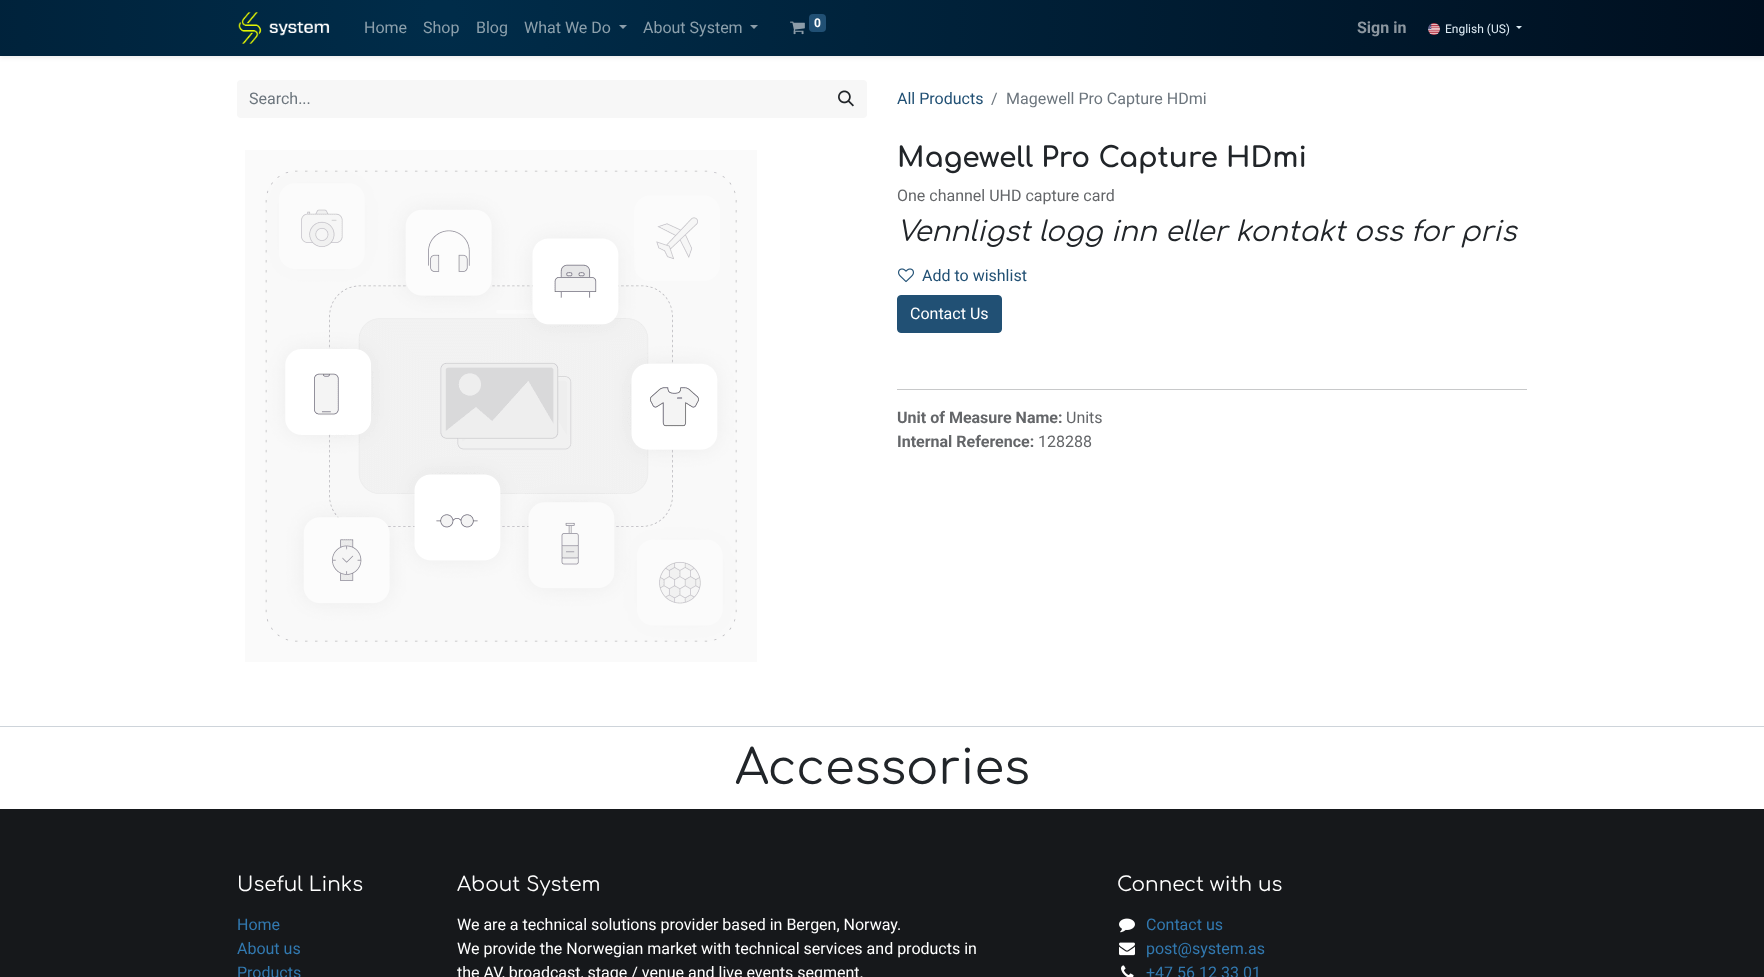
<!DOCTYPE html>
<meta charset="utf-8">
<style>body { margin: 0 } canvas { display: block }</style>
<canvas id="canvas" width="1764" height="977"></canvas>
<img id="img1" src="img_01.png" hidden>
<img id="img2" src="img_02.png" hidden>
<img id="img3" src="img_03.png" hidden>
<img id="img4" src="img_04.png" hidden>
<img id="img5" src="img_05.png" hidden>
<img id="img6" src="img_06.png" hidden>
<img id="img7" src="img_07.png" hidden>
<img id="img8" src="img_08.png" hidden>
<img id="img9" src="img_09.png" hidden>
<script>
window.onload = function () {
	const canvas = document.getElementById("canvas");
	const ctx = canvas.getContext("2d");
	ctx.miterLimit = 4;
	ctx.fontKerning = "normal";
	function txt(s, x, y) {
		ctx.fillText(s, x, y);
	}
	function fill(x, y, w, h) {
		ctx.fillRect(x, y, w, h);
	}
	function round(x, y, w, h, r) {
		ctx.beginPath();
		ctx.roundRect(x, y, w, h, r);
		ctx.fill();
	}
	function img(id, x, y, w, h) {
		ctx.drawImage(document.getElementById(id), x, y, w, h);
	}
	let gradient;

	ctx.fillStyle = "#FFFFFF";
	fill(0, 0, 1764, 977);
	ctx.fillStyle = "rgba(0, 0, 0, 0.07)";
	ctx.filter = "blur(2px)";
	ctx.beginPath();
	ctx.rect(0, 2, 1764, 56);
	ctx.fill();
	ctx.filter = "none";
	gradient = ctx.createRadialGradient(441, 14, 0, 441, 14, 1323);
	gradient.addColorStop(0.01, "#002C49");
	gradient.addColorStop(1, "#000F1F");
	ctx.fillStyle = gradient;
	fill(0, 0, 1764, 56);
	img("img1", 238, 12, 92, 32);
	ctx.fillStyle = "#8C9EAB";
	ctx.beginPath();
	ctx.moveTo(619, 25);
	ctx.lineTo(627, 25);
	ctx.lineTo(623, 29);
	ctx.closePath();
	ctx.fill();
	ctx.fillStyle = "#8C9DA9";
	ctx.beginPath();
	ctx.moveTo(750, 25);
	ctx.lineTo(758, 25);
	ctx.lineTo(754, 29);
	ctx.closePath();
	ctx.fill();
	img("img2", 790, 21, 15, 14);
	ctx.fillStyle = "#215074";
	round(809, 14, 17, 18, 4);
	img("img3", 1428, 23, 12, 12);
	ctx.fillStyle = "#DFEDF6";
	ctx.beginPath();
	ctx.moveTo(1516, 26);
	ctx.lineTo(1522, 26);
	ctx.lineTo(1519, 29);
	ctx.closePath();
	ctx.fill();
	ctx.fillStyle = "#F7F7F7";
	ctx.beginPath();
	ctx.roundRect(237, 80, 589, 38, [4, 0, 0, 4]);
	ctx.fill();
	ctx.beginPath();
	ctx.roundRect(825, 80, 42, 38, [0, 4, 4, 0]);
	ctx.fill();
	img("img4", 838, 90, 16, 17);
	img("img5", 245, 150, 512, 512);
	img("img6", 898, 268, 16, 15);
	ctx.fillStyle = "#215074";
	ctx.beginPath();
	ctx.roundRect(897.5, 295.5, 104, 37, 3.5);
	ctx.fill();
	ctx.strokeStyle = "#215074";
	ctx.stroke();
	ctx.fillStyle = "#C8C9CA";
	fill(897, 389, 630, 1);
	ctx.fillStyle = "#CED4DA";
	fill(0, 726, 1764, 1);
	ctx.fillStyle = "#16181B";
	fill(0, 809, 1764, 168);
	img("img7", 1119, 918, 16, 15);
	img("img8", 1119, 942, 16, 14);
	img("img9", 1121, 965, 13, 12);
	ctx.font = "16px Roboto";
	ctx.fillStyle = "#8CA0AC";
	txt("Home", 364, 33);
	txt("Shop", 423, 33);
	txt("Blog", 476, 33);
	txt("What We Do", 524, 33);
	txt("About System", 643, 33);
	ctx.font = "bold 12px Roboto";
	ctx.fillStyle = "#FFFFFF";
	txt("0", 814, 27);
	ctx.font = "bold 16px Roboto";
	ctx.fillStyle = "#8C97A0";
	txt("Sign in", 1357, 33);
	ctx.font = "12px Roboto";
	ctx.fillStyle = "#DFEDF6";
	txt("English (US)", 1445, 33);
	ctx.font = "16px Roboto";
	ctx.fillStyle = "#6C757D";
	txt("Search...", 249, 104);
	ctx.fillStyle = "#215074";
	txt("All Products", 897, 104);
	ctx.fillStyle = "#6C757D";
	txt("/", 991, 104);
	txt("Magewell Pro Capture HDmi", 1006, 104);
	ctx.font = "bold 28px Comfortaa";
	ctx.fillStyle = "#212529";
	txt("Magewell Pro Capture HDmi", 897, 167);
	ctx.font = "16px Roboto";
	ctx.fillStyle = "#646669";
	txt("One channel UHD capture card", 897, 201);
	ctx.font = "italic 28px Comfortaa";
	ctx.fillStyle = "#212529";
	txt("Vennligst logg inn eller kontakt oss for pris", 897, 241);
	ctx.font = "16px Roboto";
	ctx.fillStyle = "#215074";
	txt("Add to wishlist", 922, 281);
	ctx.fillStyle = "#FFFFFF";
	txt("Contact Us", 910, 319);
	ctx.font = "bold 16px Roboto";
	ctx.fillStyle = "#646669";
	txt("Unit of Measure Name:", 897, 423);
	ctx.font = "16px Roboto";
	txt("Units", 1066, 423);
	ctx.font = "bold 16px Roboto";
	txt("Internal Reference:", 897, 447);
	ctx.font = "16px Roboto";
	txt("128288", 1038, 447);
	ctx.font = "48px Comfortaa";
	ctx.fillStyle = "#212529";
	txt("Accessories", 735, 784);
	ctx.font = "20px Comfortaa";
	ctx.fillStyle = "#FFFFFF";
	txt("Useful Links", 237, 891);
	ctx.font = "16px Roboto";
	ctx.fillStyle = "#3279B0";
	txt("Home", 237, 930);
	txt("About us", 237, 954);
	txt("Products", 237, 978);
	ctx.font = "20px Comfortaa";
	ctx.fillStyle = "#FFFFFF";
	txt("About System", 457, 891);
	ctx.font = "16px Roboto";
	txt("We are a technical solutions provider based in Bergen, Norway.", 457, 930);
	txt("We provide the Norwegian market with technical services and products in", 457, 954);
	txt("the AV, broadcast, stage / venue and live events segment.", 457, 978);
	ctx.font = "20px Comfortaa";
	txt("Connect with us", 1117, 891);
	ctx.font = "16px Roboto";
	ctx.fillStyle = "#3279B0";
	txt("Contact us", 1146, 930);
	txt("post@system.as", 1146, 954);
	txt("+47 56 12 33 01", 1146, 978);
};
</script>
